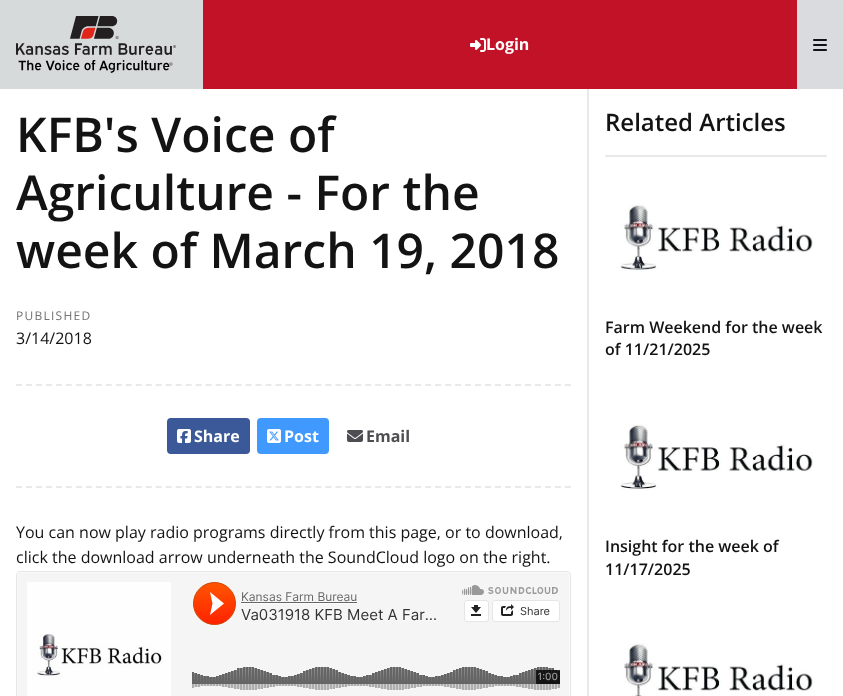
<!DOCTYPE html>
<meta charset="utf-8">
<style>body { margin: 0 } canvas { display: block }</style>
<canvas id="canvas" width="843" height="696"></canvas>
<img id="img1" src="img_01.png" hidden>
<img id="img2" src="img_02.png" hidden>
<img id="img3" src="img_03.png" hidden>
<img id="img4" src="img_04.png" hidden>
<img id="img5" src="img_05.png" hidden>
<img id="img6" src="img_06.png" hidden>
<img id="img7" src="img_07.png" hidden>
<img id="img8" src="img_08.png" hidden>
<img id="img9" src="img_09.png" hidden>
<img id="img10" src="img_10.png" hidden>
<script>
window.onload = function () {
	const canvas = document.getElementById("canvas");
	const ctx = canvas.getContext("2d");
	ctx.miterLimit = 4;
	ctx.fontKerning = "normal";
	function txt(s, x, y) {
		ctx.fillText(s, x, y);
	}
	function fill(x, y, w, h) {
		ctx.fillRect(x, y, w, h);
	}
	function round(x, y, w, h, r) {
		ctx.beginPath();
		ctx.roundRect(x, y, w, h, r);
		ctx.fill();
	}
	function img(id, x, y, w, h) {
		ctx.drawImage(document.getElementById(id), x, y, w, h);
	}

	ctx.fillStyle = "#FFFFFF";
	fill(0, 0, 843, 696);
	ctx.fillStyle = "#D7DADB";
	fill(0, 0, 203, 89);
	img("img1", 16, 16, 160, 57);
	ctx.fillStyle = "#C11227";
	fill(203, 0, 594, 89);
	img("img2", 470, 38, 16, 14);
	ctx.fillStyle = "#D9DBDE";
	fill(797, 0, 46, 89);
	img("img3", 813, 39, 14, 12);
	ctx.beginPath();
	ctx.moveTo(16, 385);
	ctx.lineTo(571, 385);
	ctx.strokeStyle = "#E8E9EB";
	ctx.lineWidth = 2;
	ctx.setLineDash([6, 3.98]);
	ctx.stroke();
	ctx.beginPath();
	ctx.moveTo(16, 487);
	ctx.lineTo(571, 487);
	ctx.stroke();
	ctx.fillStyle = "#3B5998";
	round(167, 418, 83, 36, 4);
	img("img4", 177, 429, 14, 14);
	ctx.fillStyle = "#4099FF";
	round(257, 418, 72, 36, 4);
	img("img5", 267, 429, 14, 14);
	img("img6", 347, 430, 16, 12);
	img("img7", 16, 571, 555, 125);
	ctx.fillStyle = "#E8E9EB";
	fill(587, 89, 2, 607);
	fill(605, 155, 222, 2);
	img("img8", 620, 204, 193, 67);
	img("img9", 620, 424, 193, 66);
	img("img10", 623, 643, 190, 53);
	ctx.font = "bold 16px Open Sans";
	ctx.fillStyle = "#FFFFFF";
	txt("Login", 486, 50);
	ctx.font = "600 48px Open Sans";
	ctx.fillStyle = "#131314";
	txt("KFB's Voice of", 16, 152);
	txt("Agriculture - For the", 16, 210);
	txt("week of March 19, 2018", 16, 268);
	ctx.letterSpacing = "1.25px";
	ctx.font = "12px Open Sans";
	ctx.fillStyle = "#727275";
	txt("PUBLISHED", 16, 320);
	ctx.letterSpacing = "0px";
	ctx.font = "16px Open Sans";
	ctx.fillStyle = "#131314";
	txt("3/14/2018", 16, 344);
	ctx.font = "bold 16px Open Sans";
	ctx.fillStyle = "#FFFFFF";
	txt("Share", 194, 442);
	txt("Post", 284, 442);
	ctx.fillStyle = "#4E4E52";
	txt("Email", 366, 442);
	ctx.font = "16px Open Sans";
	ctx.fillStyle = "#131314";
	txt("You can now play radio programs directly from this page, or to download,", 16, 538);
	txt("click the download arrow underneath the SoundCloud logo on the right.", 16, 563);
	ctx.font = "600 24px Open Sans";
	txt("Related Articles", 605, 131);
	ctx.font = "600 16px Open Sans";
	txt("Farm Weekend for the week", 605, 333);
	txt("of 11/21/2025", 605, 355);
	txt("Insight for the week of", 605, 552);
	txt("11/17/2025", 605, 575);
};
</script>
